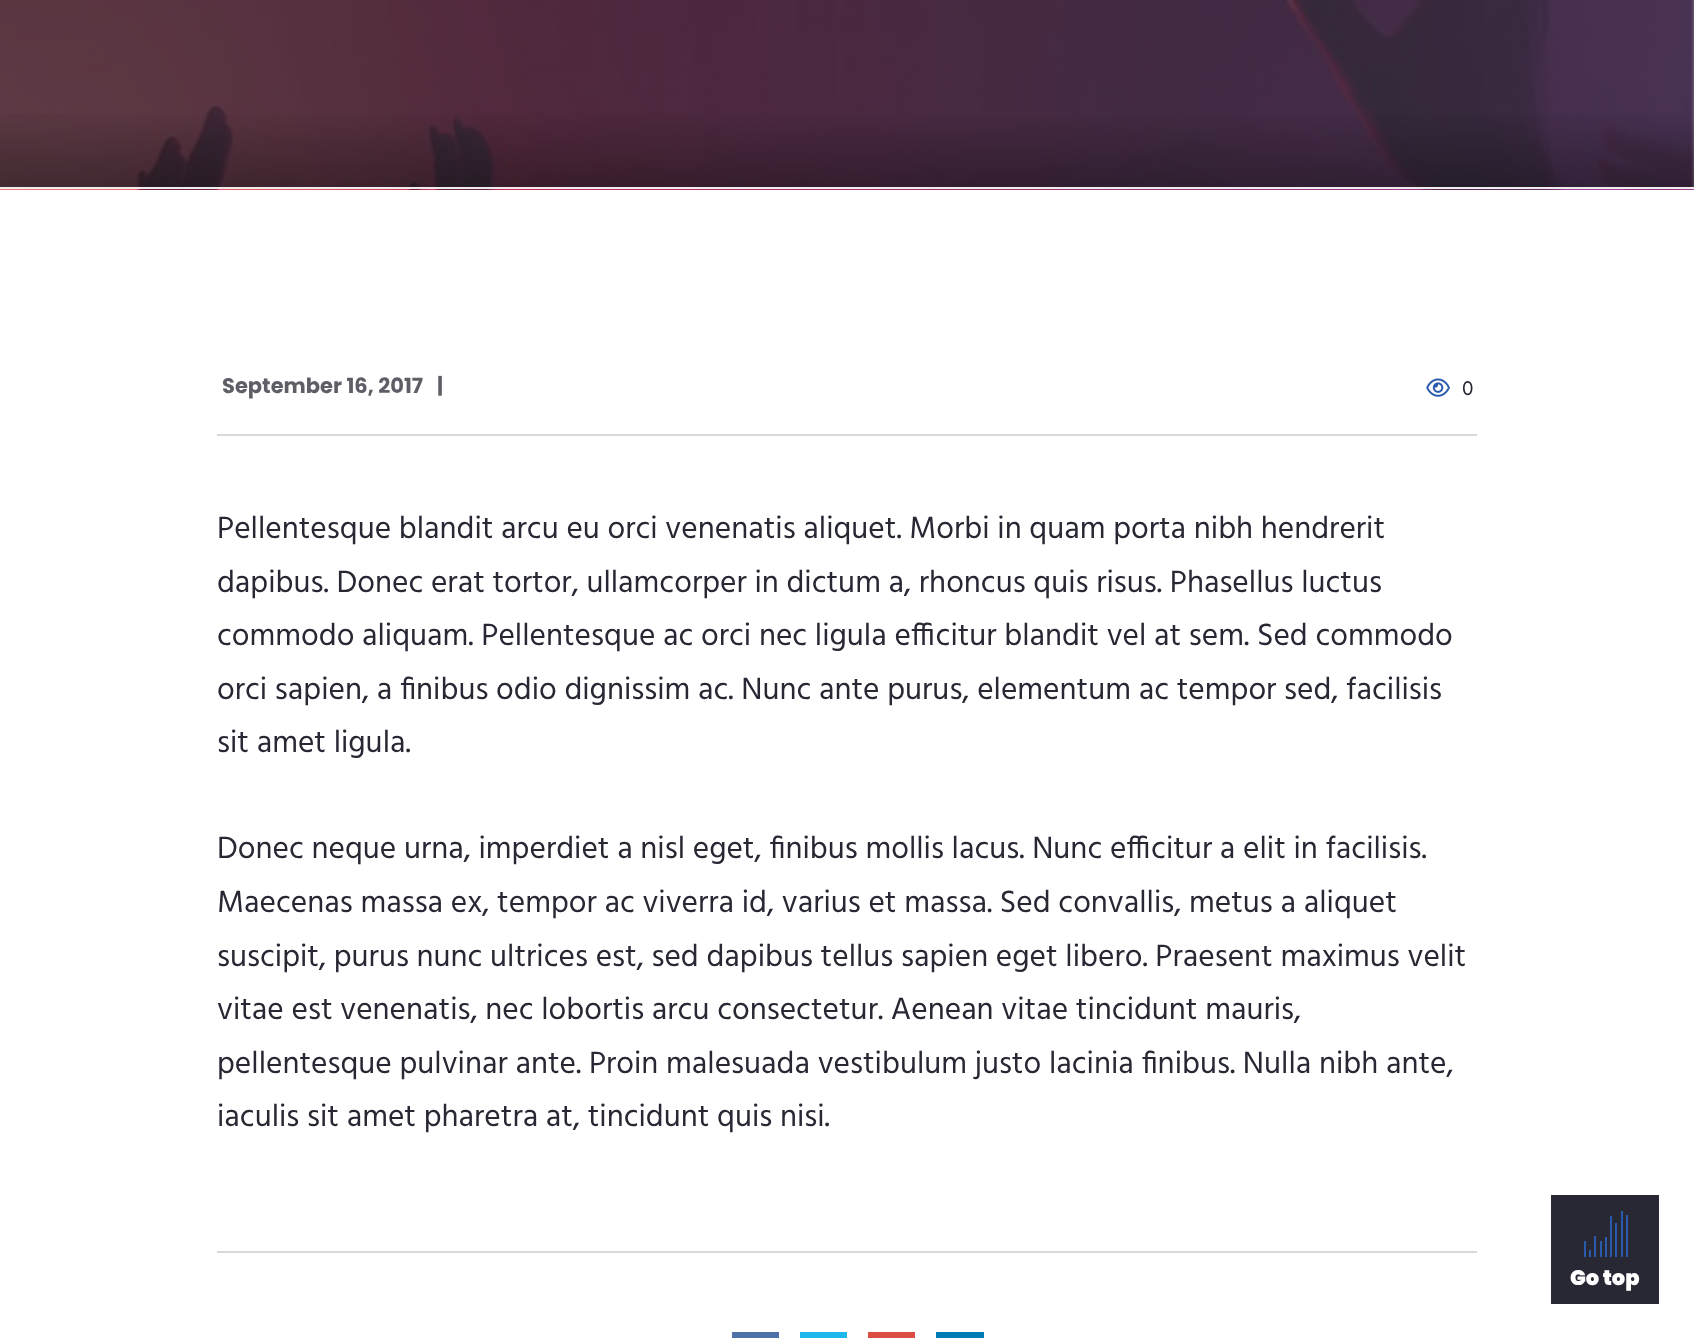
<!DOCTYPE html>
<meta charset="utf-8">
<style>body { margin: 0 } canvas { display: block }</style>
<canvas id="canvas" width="1694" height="1338"></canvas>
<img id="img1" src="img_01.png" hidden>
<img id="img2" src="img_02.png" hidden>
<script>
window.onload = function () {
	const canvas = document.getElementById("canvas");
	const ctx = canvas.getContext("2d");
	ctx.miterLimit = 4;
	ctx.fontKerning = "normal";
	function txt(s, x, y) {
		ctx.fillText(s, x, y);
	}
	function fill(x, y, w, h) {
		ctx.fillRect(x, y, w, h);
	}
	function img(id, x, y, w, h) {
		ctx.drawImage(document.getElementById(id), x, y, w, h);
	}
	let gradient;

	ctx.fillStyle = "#FFFFFF";
	fill(0, 0, 1694, 1338);
	img("img1", 0, 0, 1694, 190);
	ctx.fillStyle = "#EEEEEE";
	fill(0, 187, 1694, 2);
	gradient = ctx.createLinearGradient(847, -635, 847, 270);
	gradient.addColorStop(0.82, "rgba(0, 0, 0, 0)");
	gradient.addColorStop(1, "rgba(0, 0, 0, 0.6)");
	ctx.fillStyle = gradient;
	fill(0, 113, 1694, 74);
	ctx.fillStyle = "#D9D9D9";
	fill(217, 434, 1260, 2);
	img("img2", 1426, 378, 24, 19);
	fill(217, 1251, 1260, 2);
	ctx.fillStyle = "#4E71A8";
	fill(732, 1332, 47, 6);
	ctx.fillStyle = "#1CB7EB";
	fill(800, 1332, 47, 6);
	ctx.fillStyle = "#DC4E41";
	fill(868, 1332, 47, 6);
	ctx.fillStyle = "#007BB6";
	fill(936, 1332, 48, 6);
	ctx.fillStyle = "#282834";
	fill(1551, 1195, 108, 109);
	ctx.fillStyle = "#2A5AAE";
	fill(1584, 1241, 2, 16);
	fill(1589, 1250, 2, 7);
	fill(1594, 1236, 2, 21);
	fill(1600, 1241, 2, 16);
	fill(1605, 1237, 2, 20);
	fill(1610, 1216, 2, 41);
	fill(1615, 1223, 2, 34);
	fill(1621, 1211, 2, 46);
	fill(1626, 1215, 2, 42);
	ctx.font = "bold 21px Poppins";
	ctx.fillStyle = "#5E5E67";
	txt("September 16, 2017", 222, 393);
	txt("|", 437, 393);
	ctx.font = "21px Hind";
	ctx.fillStyle = "#282834";
	txt("0", 1462, 395);
	ctx.font = "31.5px Hind";
	txt("Pellentesque blandit arcu eu orci venenatis aliquet. Morbi in quam porta nibh hendrerit", 217, 538);
	txt("dapibus. Donec erat tortor, ullamcorper in dictum a, rhoncus quis risus. Phasellus luctus", 217, 592);
	txt("commodo aliquam. Pellentesque ac orci nec ligula efficitur blandit vel at sem. Sed commodo", 217, 645);
	txt("orci sapien, a finibus odio dignissim ac. Nunc ante purus, elementum ac tempor sed, facilisis", 217, 699);
	txt("sit amet ligula.", 217, 752);
	txt("Donec neque urna, imperdiet a nisl eget, finibus mollis lacus. Nunc efficitur a elit in facilisis.", 217, 858);
	txt("Maecenas massa ex, tempor ac viverra id, varius et massa. Sed convallis, metus a aliquet", 217, 912);
	txt("suscipit, purus nunc ultrices est, sed dapibus tellus sapien eget libero. Praesent maximus velit", 217, 966);
	txt("vitae est venenatis, nec lobortis arcu consectetur. Aenean vitae tincidunt mauris,", 217, 1019);
	txt("pellentesque pulvinar ante. Proin malesuada vestibulum justo lacinia finibus. Nulla nibh ante,", 217, 1073);
	txt("iaculis sit amet pharetra at, tincidunt quis nisi.", 217, 1126);
	ctx.font = "900 21px Poppins";
	ctx.fillStyle = "#FFFFFF";
	txt("Go top", 1570, 1285);
};
</script>
